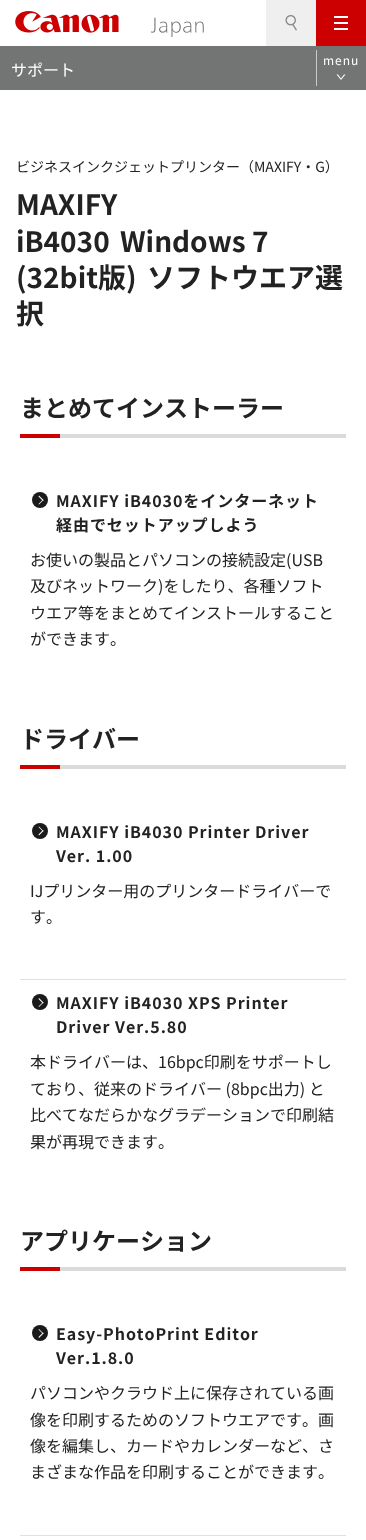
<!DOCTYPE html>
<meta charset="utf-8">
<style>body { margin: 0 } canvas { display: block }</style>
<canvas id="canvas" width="366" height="1540"></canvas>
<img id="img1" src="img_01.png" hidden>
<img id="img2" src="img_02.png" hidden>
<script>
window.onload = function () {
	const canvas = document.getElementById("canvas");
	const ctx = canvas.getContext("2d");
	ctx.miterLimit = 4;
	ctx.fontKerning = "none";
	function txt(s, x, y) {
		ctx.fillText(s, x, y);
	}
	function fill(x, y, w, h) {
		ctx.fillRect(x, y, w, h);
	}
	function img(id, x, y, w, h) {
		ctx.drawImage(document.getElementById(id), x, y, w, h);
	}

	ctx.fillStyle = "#FFFFFF";
	fill(0, 0, 366, 1540);
	img("img1", 15, 11, 189, 26);
	ctx.fillStyle = "#EFEFEF";
	fill(266, 0, 50, 46);
	img("img2", 285, 15, 12, 16);
	ctx.fillStyle = "#CC0000";
	fill(316, 0, 50, 46);
	ctx.fillStyle = "#FFFFFF";
	fill(334, 16, 14, 2);
	fill(334, 22, 14, 2);
	fill(334, 28, 14, 2);
	ctx.fillStyle = "#737575";
	fill(0, 46, 366, 44);
	ctx.fillStyle = "#CACACA";
	fill(316, 50, 1, 36);
	ctx.fillStyle = "#FFFFFF";
	ctx.beginPath();
	ctx.moveTo(345.5, 74.5);
	ctx.lineTo(341, 80);
	ctx.lineTo(341, 78.5);
	ctx.lineTo(344, 74.5);
	ctx.closePath();
	ctx.moveTo(341, 80);
	ctx.lineTo(336.5, 74.5);
	ctx.lineTo(338, 74.5);
	ctx.lineTo(341, 78.5);
	ctx.closePath();
	ctx.fill();
	ctx.fillStyle = "#CC0000";
	fill(20, 434, 40, 4);
	ctx.fillStyle = "#DBDBDB";
	fill(60, 434, 286, 4);
	ctx.fillStyle = "#1A1A1A";
	ctx.beginPath();
	ctx.arc(40, 500, 8, 0, Math.PI * 2);
	ctx.fill();
	ctx.fillStyle = "#FFFFFF";
	ctx.beginPath();
	ctx.moveTo(39, 495.5);
	ctx.lineTo(43.5, 500);
	ctx.lineTo(43, 501);
	ctx.lineTo(38.5, 496.5);
	ctx.closePath();
	ctx.fill();
	ctx.beginPath();
	ctx.moveTo(43, 499.5);
	ctx.lineTo(43.5, 500);
	ctx.lineTo(39, 504.5);
	ctx.lineTo(38.5, 504);
	ctx.closePath();
	ctx.fill();
	ctx.fillStyle = "#CC0000";
	fill(20, 765, 40, 4);
	ctx.fillStyle = "#DBDBDB";
	fill(60, 765, 286, 4);
	ctx.fillStyle = "#1A1A1A";
	ctx.beginPath();
	ctx.arc(40, 831, 8, 0, Math.PI * 2);
	ctx.fill();
	ctx.fillStyle = "#FFFFFF";
	ctx.beginPath();
	ctx.moveTo(39, 826.5);
	ctx.lineTo(43.5, 831);
	ctx.lineTo(43, 831.5);
	ctx.lineTo(38.5, 827);
	ctx.closePath();
	ctx.fill();
	ctx.beginPath();
	ctx.moveTo(43, 830);
	ctx.lineTo(43.5, 831);
	ctx.lineTo(39, 835.5);
	ctx.lineTo(38.5, 834.5);
	ctx.closePath();
	ctx.fill();
	ctx.fillStyle = "#E1E1E1";
	fill(20, 979, 326, 1);
	ctx.fillStyle = "#1A1A1A";
	ctx.beginPath();
	ctx.arc(40, 1002, 8, 0, Math.PI * 2);
	ctx.fill();
	ctx.fillStyle = "#FFFFFF";
	ctx.beginPath();
	ctx.moveTo(39, 998);
	ctx.lineTo(43.5, 1002.5);
	ctx.lineTo(43, 1003.5);
	ctx.lineTo(38.5, 999);
	ctx.closePath();
	ctx.fill();
	ctx.beginPath();
	ctx.moveTo(43, 1002);
	ctx.lineTo(43.5, 1002.5);
	ctx.lineTo(39, 1007);
	ctx.lineTo(38.5, 1006.5);
	ctx.closePath();
	ctx.fill();
	ctx.fillStyle = "#CC0000";
	fill(20, 1267, 40, 4);
	ctx.fillStyle = "#DBDBDB";
	fill(60, 1267, 286, 4);
	ctx.fillStyle = "#1A1A1A";
	ctx.beginPath();
	ctx.arc(40, 1333, 8, 0, Math.PI * 2);
	ctx.fill();
	ctx.fillStyle = "#FFFFFF";
	ctx.beginPath();
	ctx.moveTo(39, 1329);
	ctx.lineTo(43.5, 1333.5);
	ctx.lineTo(43, 1334);
	ctx.lineTo(38.5, 1329.5);
	ctx.closePath();
	ctx.fill();
	ctx.beginPath();
	ctx.moveTo(43, 1332.5);
	ctx.lineTo(43.5, 1333.5);
	ctx.lineTo(39, 1338);
	ctx.lineTo(38.5, 1337);
	ctx.closePath();
	ctx.fill();
	ctx.fillStyle = "#E1E1E1";
	fill(20, 1535, 326, 1);
	ctx.font = "16px Noto Sans JP";
	ctx.fillStyle = "#FFFFFF";
	txt("サポート", 11, 76);
	ctx.letterSpacing = "1px";
	ctx.font = "12px Noto Sans JP";
	txt("menu", 323, 65);
	ctx.letterSpacing = "0px";
	ctx.font = "14px Noto Sans JP";
	ctx.fillStyle = "#222222";
	txt("ビジネスインクジェットプリンター（MAXIFY・G）", 16, 172);
	ctx.font = "bold 28px Noto Sans JP";
	txt("MAXIFY", 16, 215);
	txt("iB4030", 16, 252);
	txt("Windows 7", 120, 252);
	txt("(32bit版)", 16, 288);
	txt("ソフトウエア選", 147, 288);
	txt("択", 16, 324);
	ctx.font = "bold 24px Noto Sans JP";
	txt("まとめてインストーラー", 20, 417);
	ctx.letterSpacing = "0.95px";
	ctx.font = "bold 16px Noto Sans JP";
	txt("MAXIFY iB4030をインターネット", 56, 507);
	txt("経由でセットアップしよう", 56, 531);
	ctx.letterSpacing = "0px";
	ctx.font = "16px Noto Sans JP";
	txt("お使いの製品とパソコンの接続設定(USB", 30, 566);
	txt("及びネットワーク)をしたり、各種ソフト", 30, 592);
	txt("ウエア等をまとめてインストールすること", 30, 619);
	txt("ができます。", 30, 645);
	ctx.font = "bold 24px Noto Sans JP";
	txt("ドライバー", 20, 748);
	ctx.letterSpacing = "0.95px";
	ctx.font = "bold 16px Noto Sans JP";
	txt("MAXIFY iB4030 Printer Driver", 56, 838);
	txt("Ver. 1.00", 56, 862);
	ctx.letterSpacing = "0px";
	ctx.font = "16px Noto Sans JP";
	txt("IJプリンター用のプリンタードライバーで", 30, 897);
	txt("す。", 30, 923);
	ctx.letterSpacing = "0.95px";
	ctx.font = "bold 16px Noto Sans JP";
	txt("MAXIFY iB4030 XPS Printer", 56, 1009);
	txt("Driver Ver.5.80", 56, 1033);
	ctx.letterSpacing = "0px";
	ctx.font = "16px Noto Sans JP";
	txt("本ドライバーは、16bpc印刷をサポートし", 30, 1068);
	txt("ており、従来のドライバー (8bpc出力) と", 30, 1095);
	txt("比べてなだらかなグラデーションで印刷結", 30, 1121);
	txt("果が再現できます。", 30, 1148);
	ctx.font = "bold 24px Noto Sans JP";
	txt("アプリケーション", 20, 1250);
	ctx.letterSpacing = "0.95px";
	ctx.font = "bold 16px Noto Sans JP";
	txt("Easy-PhotoPrint Editor", 56, 1340);
	txt("Ver.1.8.0", 56, 1364);
	ctx.letterSpacing = "0px";
	ctx.font = "16px Noto Sans JP";
	txt("パソコンやクラウド上に保存されている画", 30, 1399);
	txt("像を印刷するためのソフトウエアです。画", 30, 1426);
	txt("像を編集し、カードやカレンダーなど、さ", 30, 1452);
	txt("まざまな作品を印刷することができます。", 30, 1478);
};
</script>
